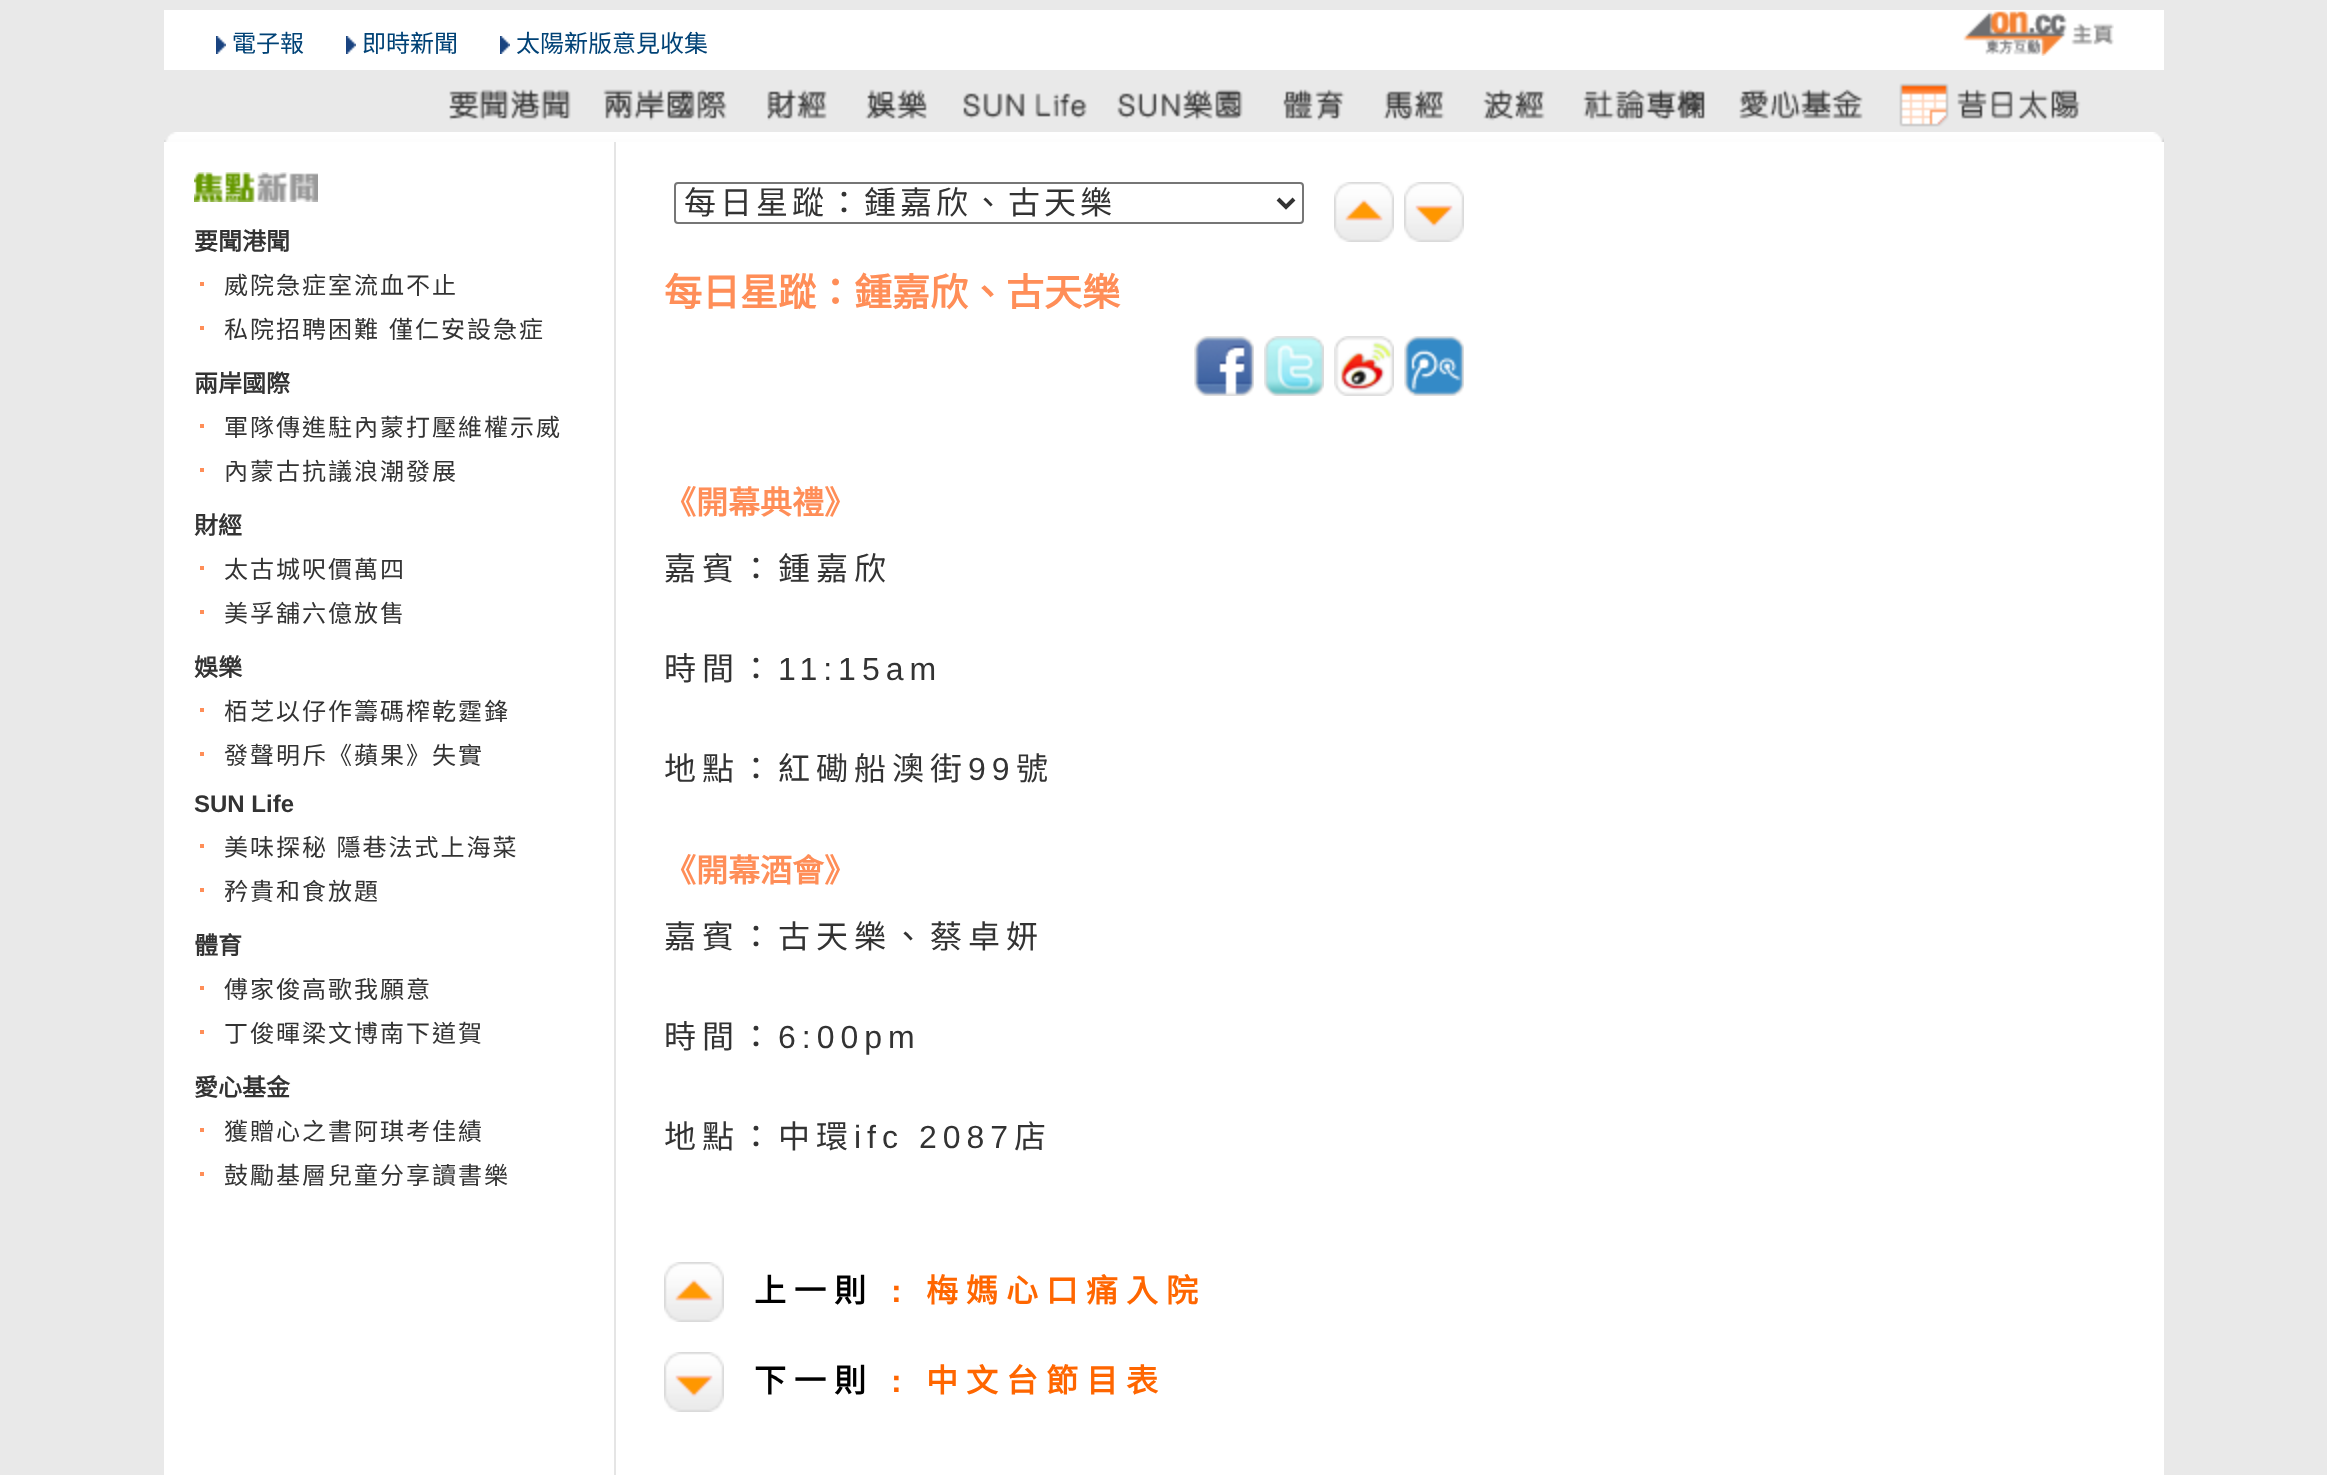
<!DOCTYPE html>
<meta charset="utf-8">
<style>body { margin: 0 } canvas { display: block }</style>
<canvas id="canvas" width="2327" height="1475"></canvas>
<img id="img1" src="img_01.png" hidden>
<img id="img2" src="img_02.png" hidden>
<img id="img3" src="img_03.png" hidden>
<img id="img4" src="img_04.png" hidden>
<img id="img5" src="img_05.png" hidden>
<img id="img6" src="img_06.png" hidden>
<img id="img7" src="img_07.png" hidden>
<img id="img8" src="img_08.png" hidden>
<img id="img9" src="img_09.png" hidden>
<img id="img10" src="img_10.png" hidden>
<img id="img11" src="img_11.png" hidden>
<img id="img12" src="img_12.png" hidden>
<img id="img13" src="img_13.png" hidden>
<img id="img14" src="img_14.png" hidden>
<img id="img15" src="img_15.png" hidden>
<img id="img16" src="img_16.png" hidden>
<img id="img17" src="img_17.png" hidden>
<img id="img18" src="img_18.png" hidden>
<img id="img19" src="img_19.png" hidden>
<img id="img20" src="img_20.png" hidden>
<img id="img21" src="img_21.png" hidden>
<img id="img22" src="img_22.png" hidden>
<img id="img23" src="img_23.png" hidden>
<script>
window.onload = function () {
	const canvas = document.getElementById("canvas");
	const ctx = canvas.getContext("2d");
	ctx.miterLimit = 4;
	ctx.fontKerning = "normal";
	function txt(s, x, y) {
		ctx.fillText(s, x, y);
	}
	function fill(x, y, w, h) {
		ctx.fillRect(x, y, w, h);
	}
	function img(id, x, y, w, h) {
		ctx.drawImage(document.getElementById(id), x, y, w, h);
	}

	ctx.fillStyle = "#E9E9E9";
	fill(0, 0, 2327, 1475);
	ctx.fillStyle = "#FFFFFF";
	fill(164, 10, 2000, 60);
	img("img1", 216, 36, 10, 18);
	img("img1", 346, 36, 10, 18);
	img("img1", 500, 36, 10, 18);
	img("img2", 1963, 11, 151, 45);
	img("img3", 449, 89, 122, 32);
	img("img4", 603, 89, 124, 32);
	img("img5", 767, 89, 60, 32);
	img("img6", 865, 89, 62, 31);
	img("img7", 963, 93, 124, 26);
	img("img8", 1117, 89, 126, 32);
	img("img9", 1283, 89, 62, 32);
	img("img10", 1383, 89, 62, 32);
	img("img11", 1483, 89, 62, 32);
	img("img12", 1583, 89, 122, 32);
	img("img13", 1739, 89, 124, 30);
	img("img14", 1899, 83, 182, 44);
	img("img15", 164, 132, 1920, 10);
	img("img16", 2084, 132, 80, 10);
	fill(164, 142, 2000, 1333);
	ctx.fillStyle = "#E5E5E5";
	fill(614, 142, 2, 1333);
	img("img17", 194, 172, 124, 30);
	ctx.fillStyle = "#FF8E58";
	fill(200, 282, 4, 4);
	fill(200, 326, 4, 4);
	fill(200, 424, 4, 4);
	fill(200, 468, 4, 4);
	fill(200, 566, 4, 4);
	fill(200, 610, 4, 4);
	fill(200, 708, 4, 4);
	fill(200, 752, 4, 4);
	fill(200, 844, 4, 4);
	fill(200, 888, 4, 4);
	fill(200, 986, 4, 4);
	fill(200, 1030, 4, 4);
	fill(200, 1128, 4, 4);
	fill(200, 1172, 4, 4);
	ctx.beginPath();
	ctx.roundRect(675, 183, 628, 40, 3);
	ctx.strokeStyle = "#767676";
	ctx.lineWidth = 2;
	ctx.stroke();
	ctx.beginPath();
	ctx.moveTo(1278, 199);
	ctx.lineTo(1286, 207);
	ctx.lineTo(1294, 199);
	ctx.strokeStyle = "#333333";
	ctx.lineWidth = 4;
	ctx.stroke();
	img("img18", 1334, 182, 60, 60);
	img("img19", 1404, 182, 60, 60);
	img("img20", 1194, 336, 60, 60);
	img("img21", 1264, 336, 60, 60);
	img("img22", 1334, 336, 60, 60);
	img("img23", 1404, 336, 60, 60);
	img("img18", 664, 1262, 60, 60);
	img("img19", 664, 1352, 60, 60);
	ctx.font = "24px Noto Sans CJK HK";
	ctx.fillStyle = "#004276";
	txt("電子報", 232, 52);
	txt("即時新聞", 362, 52);
	txt("太陽新版意見收集", 516, 52);
	ctx.font = "bold 24px Noto Sans CJK HK";
	ctx.fillStyle = "#333333";
	txt("要聞港聞", 194, 250);
	ctx.letterSpacing = "2px";
	ctx.font = "24px Noto Sans CJK HK";
	txt("威院急症室流血不止", 224, 294);
	txt("私院招聘困難", 224, 338);
	txt("僅仁安設急症", 389, 338);
	ctx.letterSpacing = "0px";
	ctx.font = "bold 24px Noto Sans CJK HK";
	txt("兩岸國際", 194, 392);
	ctx.letterSpacing = "2px";
	ctx.font = "24px Noto Sans CJK HK";
	txt("軍隊傳進駐內蒙打壓維權示威", 224, 436);
	txt("內蒙古抗議浪潮發展", 224, 480);
	ctx.letterSpacing = "0px";
	ctx.font = "bold 24px Noto Sans CJK HK";
	txt("財經", 194, 534);
	ctx.letterSpacing = "2px";
	ctx.font = "24px Noto Sans CJK HK";
	txt("太古城呎價萬四", 224, 578);
	txt("美孚舖六億放售", 224, 622);
	ctx.letterSpacing = "0px";
	ctx.font = "bold 24px Noto Sans CJK HK";
	txt("娛樂", 194, 676);
	ctx.letterSpacing = "2px";
	ctx.font = "24px Noto Sans CJK HK";
	txt("栢芝以仔作籌碼榨乾霆鋒", 224, 720);
	txt("發聲明斥《蘋果》失實", 224, 764);
	ctx.letterSpacing = "0px";
	ctx.font = "bold 24px Liberation Sans";
	txt("SUN Life", 194, 812);
	ctx.letterSpacing = "2px";
	ctx.wordSpacing = "1px";
	ctx.font = "24px Noto Sans CJK HK";
	txt("美味探秘 隱巷法式上海菜", 224, 856);
	ctx.wordSpacing = "0px";
	txt("矜貴和食放題", 224, 900);
	ctx.letterSpacing = "0px";
	ctx.font = "bold 24px Noto Sans CJK HK";
	txt("體育", 194, 954);
	ctx.letterSpacing = "2px";
	ctx.font = "24px Noto Sans CJK HK";
	txt("傅家俊高歌我願意", 224, 998);
	txt("丁俊暉梁文博南下道賀", 224, 1042);
	ctx.letterSpacing = "0px";
	ctx.font = "bold 24px Noto Sans CJK HK";
	txt("愛心基金", 194, 1096);
	ctx.letterSpacing = "2px";
	ctx.font = "24px Noto Sans CJK HK";
	txt("獲贈心之書阿琪考佳績", 224, 1140);
	txt("鼓勵基層兒童分享讀書樂", 224, 1184);
	ctx.letterSpacing = "4px";
	ctx.font = "32px Noto Sans CJK HK";
	txt("每日星蹤：鍾嘉欣、古天樂", 684, 214);
	ctx.letterSpacing = "0px";
	ctx.font = "bold 38px Noto Sans CJK HK";
	ctx.fillStyle = "#FF8E58";
	txt("每日星蹤：鍾嘉欣、古天樂", 664, 306);
	ctx.font = "bold 32px Noto Sans CJK HK";
	txt("《開幕典禮》", 664, 514);
	ctx.letterSpacing = "6px";
	ctx.font = "32px Noto Sans CJK HK";
	ctx.fillStyle = "#333333";
	txt("嘉賓：鍾嘉欣", 664, 580);
	txt("時間：", 664, 680);
	ctx.font = "32px Liberation Sans";
	txt("11:15am", 778, 680);
	ctx.font = "32px Noto Sans CJK HK";
	txt("地點：紅磡船澳街", 664, 780);
	ctx.font = "32px Liberation Sans";
	txt("99", 968, 780);
	ctx.font = "32px Noto Sans CJK HK";
	txt("號", 1016, 780);
	ctx.letterSpacing = "0px";
	ctx.font = "bold 32px Noto Sans CJK HK";
	ctx.fillStyle = "#FF8E58";
	txt("《開幕酒會》", 664, 882);
	ctx.letterSpacing = "6px";
	ctx.font = "32px Noto Sans CJK HK";
	ctx.fillStyle = "#333333";
	txt("嘉賓：古天樂、蔡卓妍", 664, 948);
	txt("時間：", 664, 1048);
	ctx.font = "32px Liberation Sans";
	txt("6:00pm", 778, 1048);
	ctx.font = "32px Noto Sans CJK HK";
	txt("地點：中環", 664, 1148);
	ctx.font = "32px Liberation Sans";
	txt("ifc 2087", 854, 1148);
	ctx.font = "32px Noto Sans CJK HK";
	txt("店", 1014, 1148);
	ctx.letterSpacing = "8px";
	ctx.font = "bold 32px Noto Sans CJK HK";
	ctx.fillStyle = "#000000";
	txt("上一則", 754, 1302);
	ctx.font = "bold 32px Liberation Sans";
	ctx.fillStyle = "#FF6600";
	txt(":", 891, 1302);
	ctx.font = "bold 32px Noto Sans CJK HK";
	txt("梅媽心口痛入院", 926, 1302);
	ctx.fillStyle = "#000000";
	txt("下一則", 754, 1392);
	ctx.font = "bold 32px Liberation Sans";
	ctx.fillStyle = "#FF6600";
	txt(":", 891, 1392);
	ctx.font = "bold 32px Noto Sans CJK HK";
	txt("中文台節目表", 926, 1392);
};
</script>
